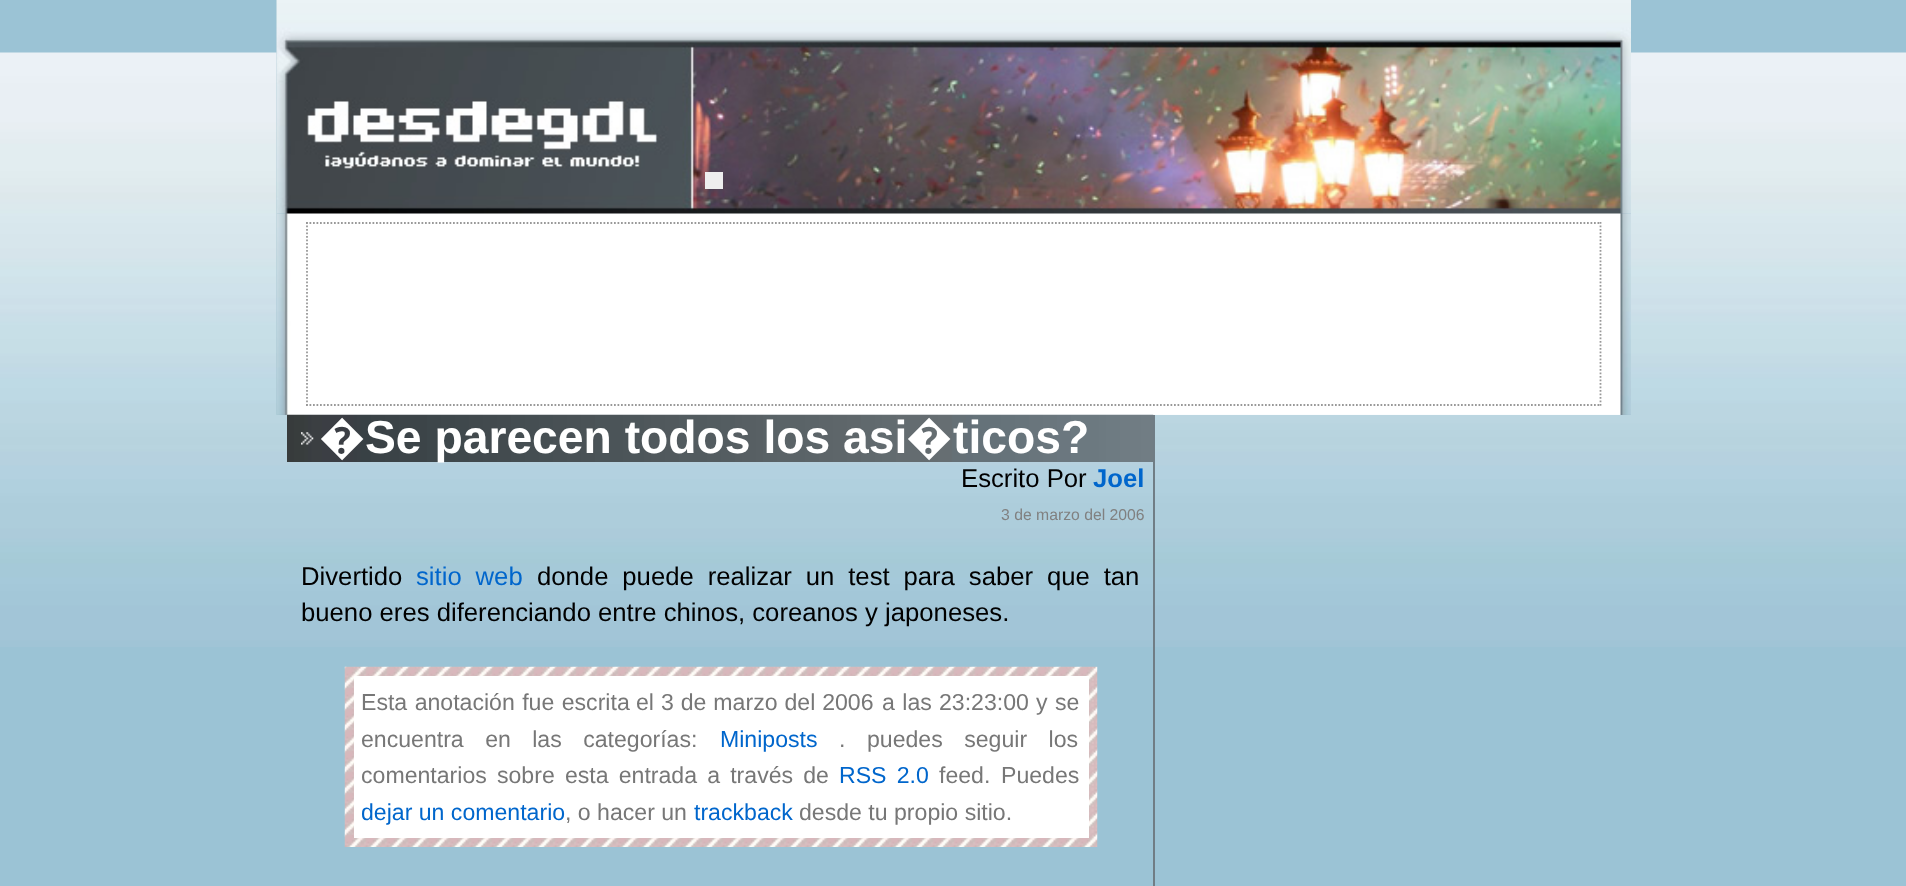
<!DOCTYPE html>
<meta charset="utf-8">
<style>body { margin: 0 } canvas { display: block }</style>
<canvas id="canvas" width="1906" height="886"></canvas>
<img id="img1" src="img_01.png" hidden>
<img id="img2" src="img_02.png" hidden>
<img id="img3" src="img_04.png" hidden>
<img id="img4" src="img_03.png" hidden>
<img id="img5" src="img_05.png" hidden>
<img id="img6" src="img_06.png" hidden>
<img id="img7" src="img_07.png" hidden>
<script>
window.onload = function () {
	const canvas = document.getElementById("canvas");
	const ctx = canvas.getContext("2d");
	ctx.miterLimit = 4;
	ctx.fontKerning = "normal";
	function txt(s, x, y) {
		ctx.fillText(s, x, y);
	}
	function fill(x, y, w, h) {
		ctx.fillRect(x, y, w, h);
	}
	function img(id, x, y, w, h) {
		ctx.drawImage(document.getElementById(id), x, y, w, h);
	}

	ctx.fillStyle = "#9BC3D5";
	fill(0, 0, 1906, 886);
	img("img1", 0, 52, 1906, 595);
	img("img2", 276, 0, 1355, 415);
	img("img3", 276, 213, 1355, 202);
	img("img4", 276, 0, 1355, 214);
	ctx.fillStyle = "#EEEEEE";
	fill(705, 172, 18, 17);
	ctx.beginPath();
	ctx.moveTo(306, 223);
	ctx.lineTo(1601, 223);
	ctx.strokeStyle = "#999999";
	ctx.lineWidth = 1.8;
	ctx.setLineDash([1.75, 1.75]);
	ctx.stroke();
	ctx.beginPath();
	ctx.moveTo(1600.5, 222);
	ctx.lineTo(1600.5, 406);
	ctx.stroke();
	ctx.beginPath();
	ctx.moveTo(306, 405);
	ctx.lineTo(1601, 405);
	ctx.stroke();
	ctx.beginPath();
	ctx.moveTo(307, 222);
	ctx.lineTo(307, 406);
	ctx.stroke();
	ctx.fillStyle = "#707D85";
	fill(1153, 415, 2, 471);
	img("img5", 287, 414, 867, 48);
	img("img6", 301, 432, 13, 13);
	img("img7", 344, 666, 754, 181);
	ctx.fillStyle = "#FFFFFF";
	fill(354, 676, 735, 162);
	ctx.font = "bold 46.25px Noto Sans";
	txt("�", 319, 453);
	ctx.font = "bold 46.25px Liberation Sans";
	txt("Se parecen todos los asi", 365, 453);
	ctx.font = "bold 46.25px Noto Sans";
	txt("�", 906, 453);
	ctx.font = "bold 46.25px Liberation Sans";
	txt("ticos?", 953, 453);
	ctx.font = "25.7px Liberation Sans";
	ctx.fillStyle = "#000000";
	txt("Escrito Por", 961, 487);
	ctx.font = "bold 25.7px Liberation Sans";
	ctx.fillStyle = "#0066CC";
	txt("Joel", 1093, 487);
	ctx.font = "15.75px Liberation Sans";
	ctx.fillStyle = "#808080";
	txt("3 de marzo del 2006", 1001, 520);
	ctx.font = "25.7px Liberation Sans";
	ctx.fillStyle = "#000000";
	txt("Divertido", 301, 585);
	ctx.wordSpacing = "6.75px";
	ctx.fillStyle = "#0066CC";
	txt("sitio web", 416, 585);
	ctx.fillStyle = "#000000";
	txt("donde puede realizar un test para saber que tan", 537, 585);
	ctx.wordSpacing = "0px";
	txt("bueno eres diferenciando entre chinos, coreanos y japoneses.", 301, 621);
	ctx.wordSpacing = "1px";
	ctx.font = "23.1px Liberation Sans";
	ctx.fillStyle = "#777777";
	txt("Esta anotación fue escrita", 361, 710);
	ctx.wordSpacing = "0px";
	txt("el", 636, 710);
	ctx.wordSpacing = "0.5px";
	txt("3 de marzo del 2006", 661, 710);
	ctx.wordSpacing = "1px";
	txt("a las", 882, 710);
	ctx.wordSpacing = "0px";
	txt("23:23:00", 939, 710);
	ctx.wordSpacing = "1px";
	txt("y se", 1036, 710);
	ctx.wordSpacing = "15px";
	txt("encuentra en las categorías:", 361, 747);
	ctx.wordSpacing = "0px";
	ctx.fillStyle = "#0066CC";
	txt("Miniposts", 720, 747);
	ctx.fillStyle = "#777777";
	txt(".", 839, 747);
	ctx.wordSpacing = "15px";
	txt("puedes seguir los", 867, 747);
	ctx.wordSpacing = "3.75px";
	txt("comentarios sobre esta entrada a través de", 361, 783);
	ctx.fillStyle = "#0066CC";
	txt("RSS 2.0", 839, 783);
	ctx.wordSpacing = "0px";
	ctx.fillStyle = "#777777";
	txt("feed.", 939, 783);
	txt("Puedes", 1001, 783);
	ctx.fillStyle = "#0066CC";
	txt("dejar un comentario", 361, 820);
	ctx.fillStyle = "#777777";
	txt(", o hacer un", 565, 820);
	ctx.fillStyle = "#0066CC";
	txt("trackback", 694, 820);
	ctx.fillStyle = "#777777";
	txt("desde tu propio sitio.", 799, 820);
};
</script>
